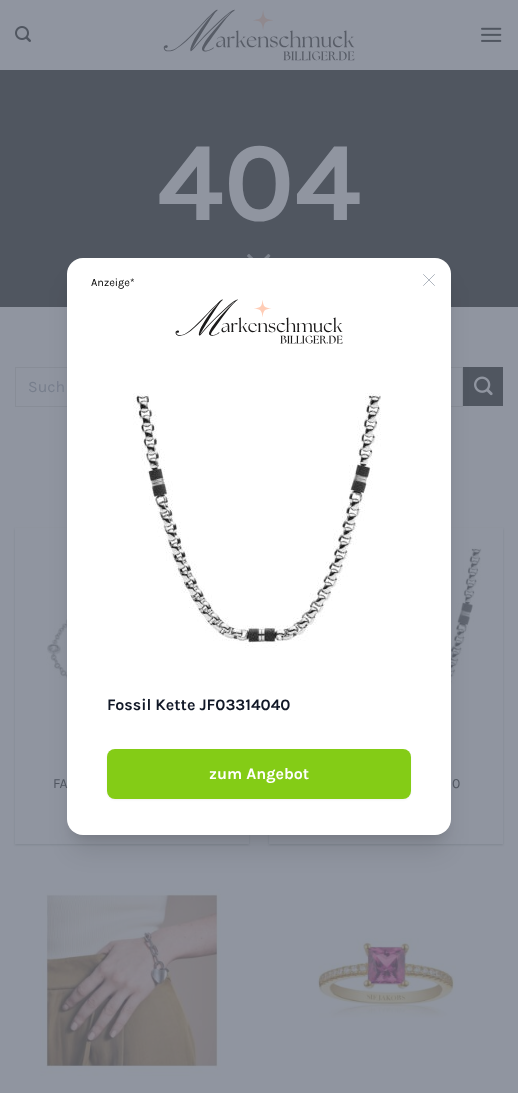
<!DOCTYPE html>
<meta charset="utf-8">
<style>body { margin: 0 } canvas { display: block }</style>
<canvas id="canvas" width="518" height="1093"></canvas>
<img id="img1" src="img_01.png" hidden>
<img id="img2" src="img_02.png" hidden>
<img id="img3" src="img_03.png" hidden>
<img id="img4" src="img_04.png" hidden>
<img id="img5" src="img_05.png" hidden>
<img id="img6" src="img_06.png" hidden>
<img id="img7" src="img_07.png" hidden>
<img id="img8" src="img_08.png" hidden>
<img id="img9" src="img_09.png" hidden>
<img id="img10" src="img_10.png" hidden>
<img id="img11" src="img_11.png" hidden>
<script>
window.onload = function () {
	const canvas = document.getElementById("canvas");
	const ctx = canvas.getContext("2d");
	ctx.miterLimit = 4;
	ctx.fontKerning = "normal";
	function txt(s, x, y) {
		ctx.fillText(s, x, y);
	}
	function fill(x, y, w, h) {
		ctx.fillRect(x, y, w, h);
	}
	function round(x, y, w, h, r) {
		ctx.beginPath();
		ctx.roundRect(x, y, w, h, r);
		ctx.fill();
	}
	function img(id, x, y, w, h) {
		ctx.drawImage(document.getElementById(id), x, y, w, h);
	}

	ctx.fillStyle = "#9095A0";
	fill(0, 0, 518, 1093);
	img("img1", 15, 26, 16, 16);
	img("img2", 163, 9, 192, 52);
	img("img3", 481, 27, 21, 15);
	ctx.fillStyle = "#505660";
	fill(0, 70, 518, 237);
	img("img4", 247, 254, 24, 4);
	ctx.strokeStyle = "#888D97";
	ctx.strokeRect(15.5, 367.5, 447, 39);
	fill(463, 367, 40, 39);
	img("img5", 474, 376, 19, 20);
	ctx.save();
	ctx.beginPath();
	ctx.moveTo(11, 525);
	ctx.lineTo(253, 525);
	ctx.lineTo(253, 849);
	ctx.lineTo(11, 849);
	ctx.closePath();
	ctx.moveTo(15, 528);
	ctx.lineTo(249, 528);
	ctx.lineTo(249, 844);
	ctx.lineTo(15, 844);
	ctx.closePath();
	ctx.clip("evenodd");
	ctx.fillStyle = "rgba(80, 86, 96, 0.24)";
	ctx.filter = "blur(1px)";
	ctx.beginPath();
	ctx.rect(15, 529, 234, 316);
	ctx.fill();
	ctx.filter = "none";
	ctx.restore();
	img("img6", 46, 589, 21, 114);
	ctx.save();
	ctx.beginPath();
	ctx.moveTo(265, 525);
	ctx.lineTo(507, 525);
	ctx.lineTo(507, 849);
	ctx.lineTo(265, 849);
	ctx.closePath();
	ctx.moveTo(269, 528);
	ctx.lineTo(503, 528);
	ctx.lineTo(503, 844);
	ctx.lineTo(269, 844);
	ctx.closePath();
	ctx.clip("evenodd");
	ctx.fillStyle = "rgba(80, 86, 96, 0.24)";
	ctx.filter = "blur(1px)";
	ctx.beginPath();
	ctx.rect(269, 529, 234, 316);
	ctx.fill();
	ctx.filter = "none";
	ctx.restore();
	img("img7", 451, 547, 31, 199);
	img("img8", 40, 889, 181, 187);
	img("img9", 317, 938, 139, 80);
	ctx.fillStyle = "rgba(0, 0, 0, 0.1)";
	ctx.filter = "blur(5px)";
	ctx.beginPath();
	ctx.roundRect(73, 272, 372, 565, 10);
	ctx.fill();
	ctx.filter = "none";
	ctx.filter = "blur(12.5px)";
	ctx.beginPath();
	ctx.roundRect(72, 283, 374, 567, 11);
	ctx.fill();
	ctx.filter = "none";
	ctx.fillStyle = "#FFFFFF";
	round(67, 258, 384, 577, 16);
	ctx.beginPath();
	ctx.moveTo(423.5, 285.5);
	ctx.lineTo(434.5, 274.5);
	ctx.moveTo(423.5, 274.5);
	ctx.lineTo(434.5, 285.5);
	ctx.strokeStyle = "#9CA3AF";
	ctx.lineWidth = 0.8;
	ctx.lineCap = "round";
	ctx.lineJoin = "round";
	ctx.stroke();
	img("img10", 175, 299, 168, 45);
	img("img11", 133, 393, 248, 255);
	ctx.fillStyle = "rgba(0, 0, 0, 0.05)";
	ctx.filter = "blur(1px)";
	ctx.beginPath();
	ctx.roundRect(107, 750, 304, 50, 8);
	ctx.fill();
	ctx.filter = "none";
	ctx.fillStyle = "#84CC16";
	round(107, 749, 304, 50, 8);
	ctx.font = "bold 112px Karla";
	ctx.fillStyle = "#9095A0";
	txt("404", 157, 220);
	ctx.font = "16px Karla";
	ctx.fillStyle = "#777E8C";
	txt("Such", 28, 392);
	ctx.font = "14px Karla";
	ctx.fillStyle = "#505660";
	txt("FA", 53, 788);
	txt("0", 452, 788);
	ctx.font = "11px Karla";
	ctx.fillStyle = "#000000";
	txt("Anzeige*", 91, 286);
	ctx.font = "bold 16px Karla";
	ctx.fillStyle = "#111827";
	txt("Fossil Kette JF03314040", 107, 710);
	ctx.fillStyle = "#FFFFFF";
	txt("zum Angebot", 209, 779);
};
</script>
